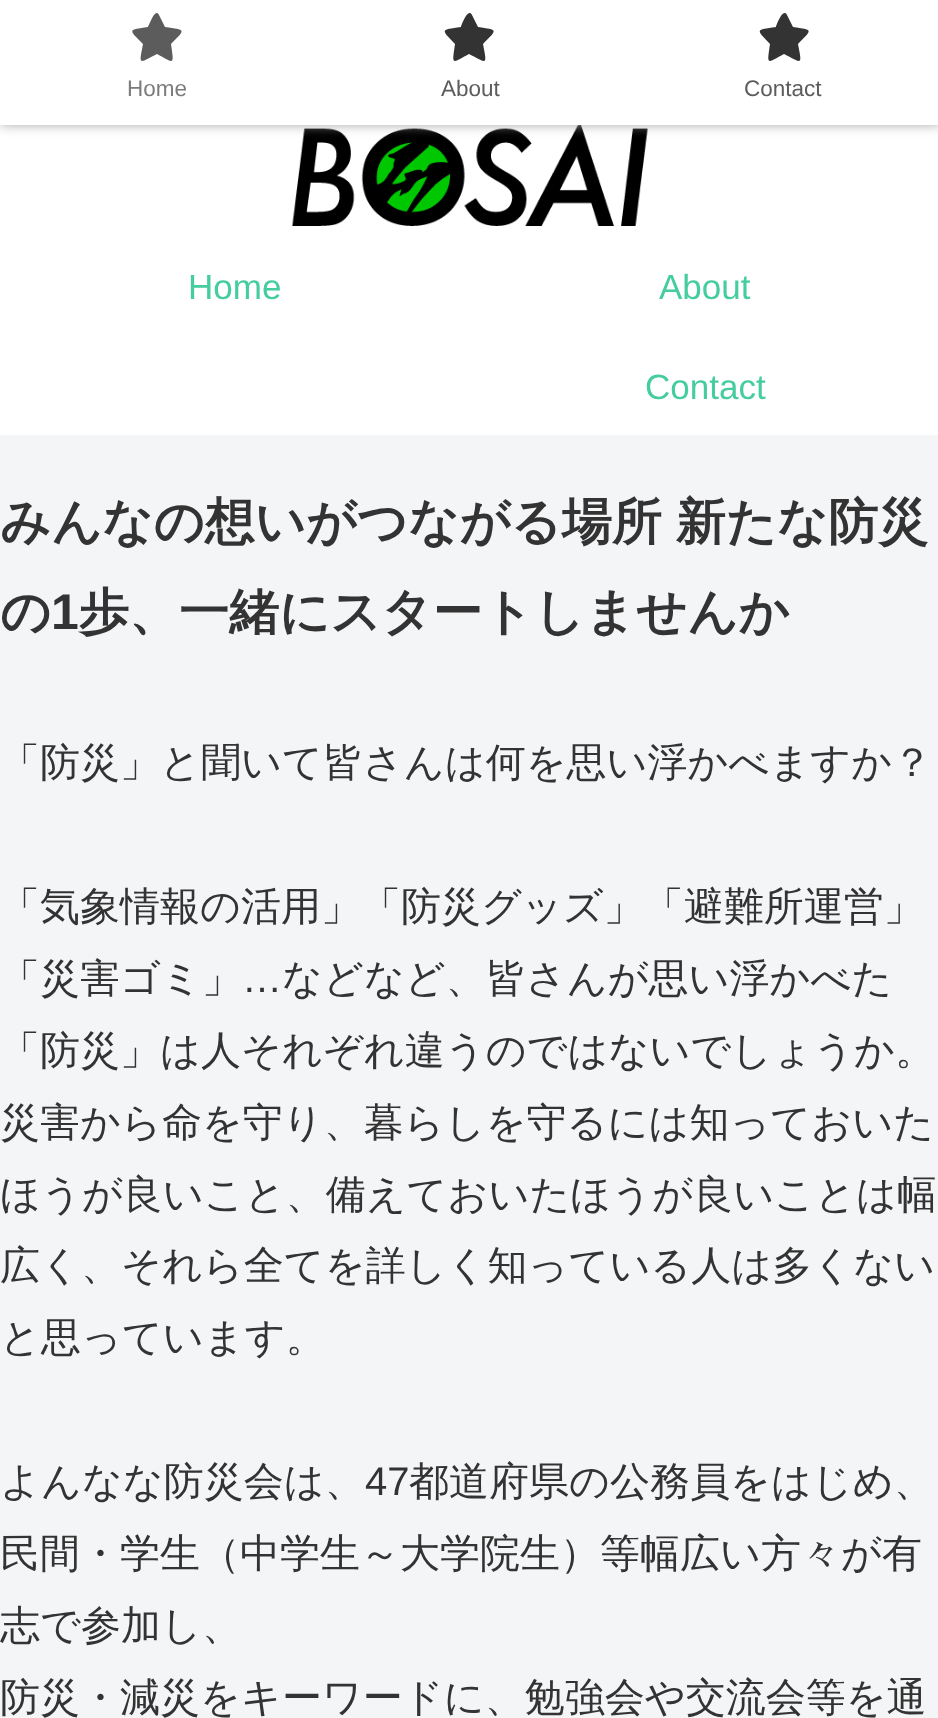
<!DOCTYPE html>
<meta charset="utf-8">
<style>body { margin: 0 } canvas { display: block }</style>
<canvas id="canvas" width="938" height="1718"></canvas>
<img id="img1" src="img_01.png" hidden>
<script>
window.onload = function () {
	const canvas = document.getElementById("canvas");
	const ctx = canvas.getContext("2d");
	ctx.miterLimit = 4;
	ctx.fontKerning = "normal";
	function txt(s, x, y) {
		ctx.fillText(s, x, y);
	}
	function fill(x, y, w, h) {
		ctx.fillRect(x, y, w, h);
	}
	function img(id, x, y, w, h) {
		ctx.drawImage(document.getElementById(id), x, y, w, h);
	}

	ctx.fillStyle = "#F4F5F7";
	fill(0, 0, 938, 1718);
	ctx.fillStyle = "#FFFFFF";
	fill(0, 125, 938, 310);
	img("img1", 291, 125, 357, 101);
	ctx.fillStyle = "#A9A9A9";
	ctx.filter = "blur(6px)";
	ctx.beginPath();
	ctx.rect(0, 0, 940, 125);
	ctx.fill();
	ctx.filter = "none";
	ctx.fillStyle = "#FFFFFF";
	fill(0, 0, 938, 125);
	ctx.fillStyle = "#5C5C5C";
	ctx.beginPath();
	ctx.moveTo(159, 15);
	ctx.bezierCurveTo(155, 7, 149, 26, 148, 27);
	ctx.bezierCurveTo(128, 30, 128, 29, 143, 44);
	ctx.bezierCurveTo(139, 65, 138, 64, 157, 54);
	ctx.bezierCurveTo(175, 64, 174, 65, 171, 44);
	ctx.bezierCurveTo(186, 29, 186, 30, 165, 27);
	ctx.closePath();
	ctx.fill();
	ctx.fillStyle = "#333333";
	ctx.beginPath();
	ctx.moveTo(472, 15);
	ctx.bezierCurveTo(468, 7, 461, 26, 461, 27);
	ctx.bezierCurveTo(440, 30, 441, 29, 455, 44);
	ctx.bezierCurveTo(452, 65, 451, 64, 469, 54);
	ctx.bezierCurveTo(488, 64, 487, 65, 483, 44);
	ctx.bezierCurveTo(498, 29, 498, 30, 478, 27);
	ctx.closePath();
	ctx.fill();
	ctx.beginPath();
	ctx.moveTo(787, 15);
	ctx.bezierCurveTo(783, 7, 776, 26, 776, 27);
	ctx.bezierCurveTo(755, 30, 756, 29, 770, 44);
	ctx.bezierCurveTo(767, 65, 766, 64, 784, 54);
	ctx.bezierCurveTo(803, 64, 802, 65, 798, 44);
	ctx.bezierCurveTo(813, 29, 813, 30, 793, 27);
	ctx.closePath();
	ctx.fill();
	ctx.font = "22.5px Liberation Sans";
	ctx.fillStyle = "#7C7C7C";
	txt("Home", 127, 96);
	ctx.fillStyle = "#5C5C5C";
	txt("About", 441, 96);
	txt("Contact", 744, 96);
	ctx.font = "35px Liberation Sans";
	ctx.fillStyle = "#45CC9F";
	txt("Home", 188, 299);
	txt("About", 659, 299);
	txt("Contact", 645, 399);
	ctx.wordSpacing = "-1px";
	ctx.font = "bold 50px WenQuanYi Zen Hei";
	ctx.fillStyle = "#333333";
	txt("みんなの想いがつながる場所 新たな防災", 0, 539);
	ctx.wordSpacing = "0px";
	txt("の", 0, 629);
	ctx.font = "bold 50px Liberation Sans";
	txt("1", 51, 629);
	ctx.font = "bold 50px WenQuanYi Zen Hei";
	txt("歩、一緒にスタートしませんか", 79, 629);
	ctx.font = "500 40px WenQuanYi Zen Hei";
	txt("「防災」と聞いて皆さんは何を思い浮かべますか？", 0, 776);
	txt("「気象情報の活用」「防災グッズ」「避難所運営」", 0, 920);
	txt("「災害ゴミ」", 0, 992);
	ctx.font = "40px Liberation Sans";
	txt("…", 242, 992);
	ctx.font = "500 40px WenQuanYi Zen Hei";
	txt("などなど、皆さんが思い浮かべた", 282, 992);
	txt("「防災」は人それぞれ違うのではないでしょうか。", 0, 1064);
	txt("災害から命を守り、暮らしを守るには知っておいた", 0, 1136);
	txt("ほうが良いこと、備えておいたほうが良いことは幅", 0, 1208);
	txt("広く、それら全てを詳しく知っている人は多くない", 0, 1279);
	txt("と思っています。", 0, 1351);
	txt("よんなな防災会は、", 0, 1495);
	ctx.font = "40px Liberation Sans";
	txt("47", 365, 1495);
	ctx.font = "500 40px WenQuanYi Zen Hei";
	txt("都道府県の公務員をはじめ、", 409, 1495);
	txt("民間・学生（中学生～大学院生）等幅広い方々が有", 0, 1567);
	txt("志で参加し、", 0, 1639);
	txt("防災・減災をキーワードに、勉強会や交流会等を通", 0, 1711);
};
</script>
